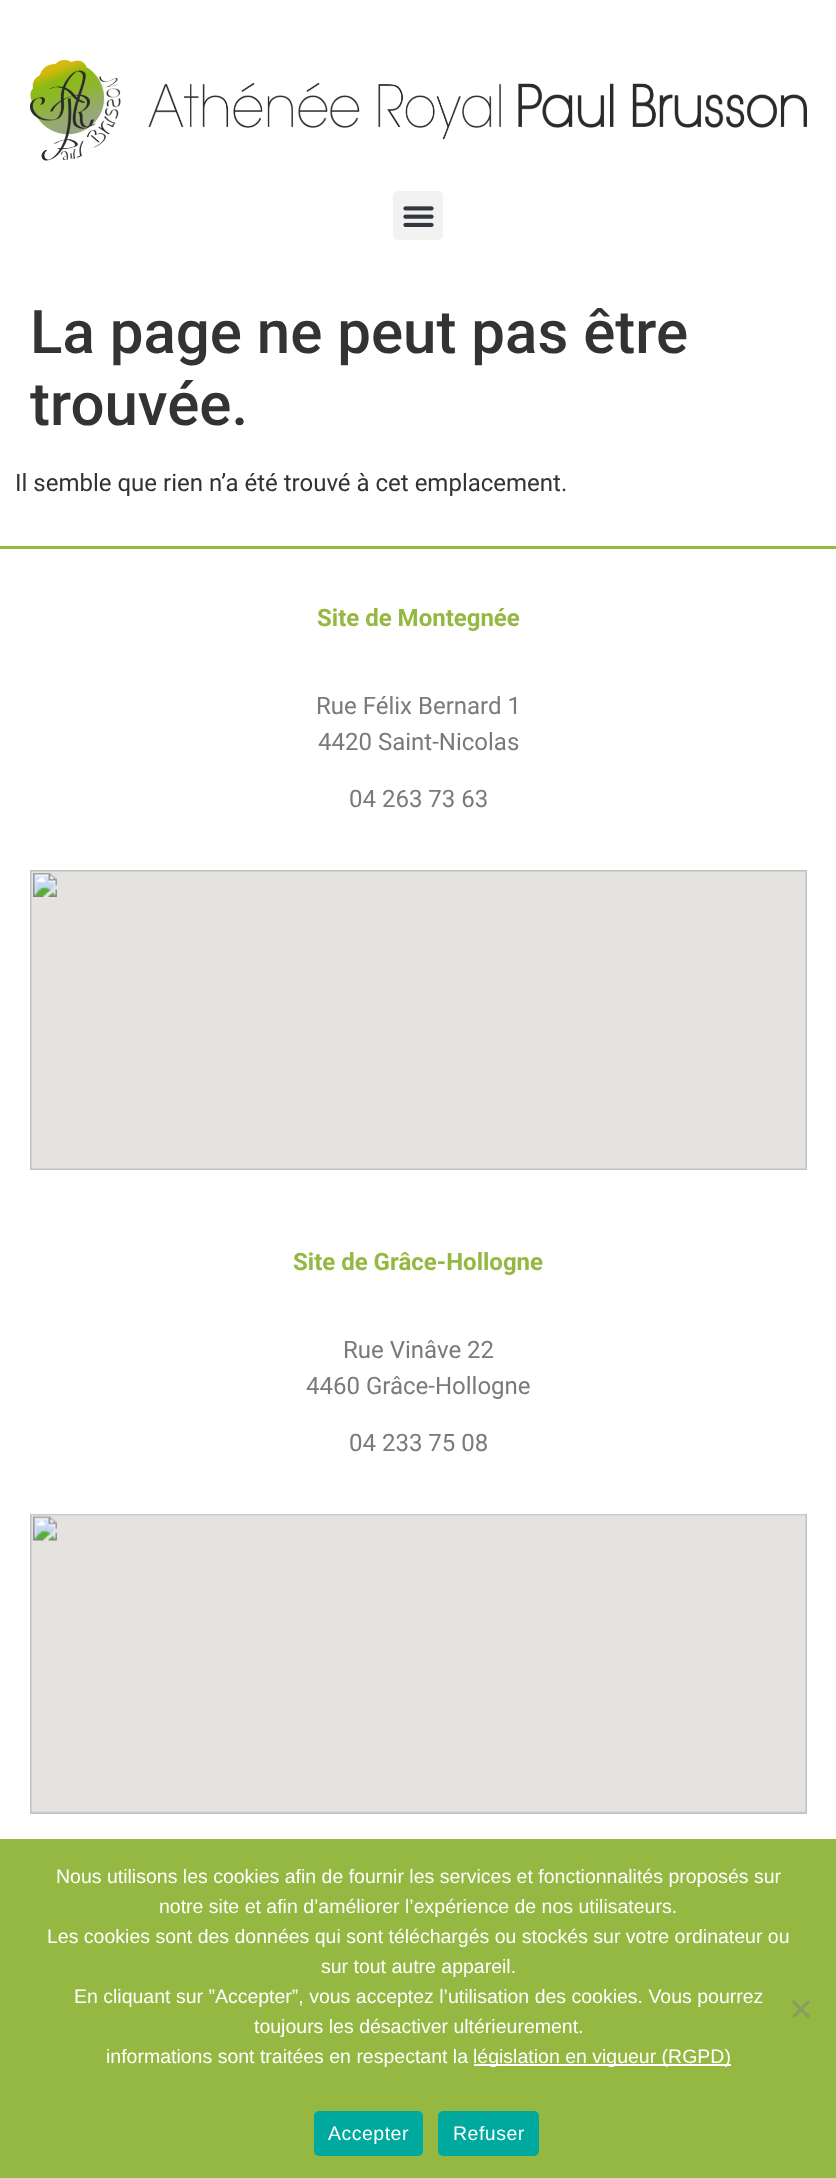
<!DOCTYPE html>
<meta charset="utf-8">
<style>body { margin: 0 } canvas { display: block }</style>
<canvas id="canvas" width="836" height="2178"></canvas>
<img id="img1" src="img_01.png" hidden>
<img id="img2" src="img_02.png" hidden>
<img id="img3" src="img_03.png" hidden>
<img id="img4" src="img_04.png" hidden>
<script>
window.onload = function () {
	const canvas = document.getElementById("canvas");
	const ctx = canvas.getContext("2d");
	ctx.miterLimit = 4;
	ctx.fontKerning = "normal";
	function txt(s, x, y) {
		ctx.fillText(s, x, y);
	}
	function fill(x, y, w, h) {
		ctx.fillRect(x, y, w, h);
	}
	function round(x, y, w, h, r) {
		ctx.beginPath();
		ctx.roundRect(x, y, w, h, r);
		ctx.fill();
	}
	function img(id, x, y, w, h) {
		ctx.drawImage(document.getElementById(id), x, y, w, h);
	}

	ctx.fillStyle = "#FFFFFF";
	fill(0, 0, 836, 2178);
	img("img1", 30, 60, 777, 101);
	ctx.fillStyle = "#F2F2F2";
	round(393, 191, 50, 49, 5);
	img("img2", 403, 206, 31, 21);
	ctx.fillStyle = "#95B842";
	fill(0, 546, 836, 3);
	img("img3", 30, 870, 777, 300);
	img("img4", 30, 1513, 777, 301);
	fill(0, 1839, 836, 339);
	ctx.fillStyle = "#FFFFFF";
	fill(474, 2064, 257, 2);
	ctx.fillStyle = "#8B9C61";
	ctx.beginPath();
	ctx.moveTo(808, 2000);
	ctx.lineTo(810, 2002.5);
	ctx.lineTo(794, 2018.5);
	ctx.lineTo(792, 2016);
	ctx.closePath();
	ctx.fill();
	ctx.beginPath();
	ctx.moveTo(792, 2002.5);
	ctx.lineTo(794, 2000);
	ctx.lineTo(810, 2016);
	ctx.lineTo(808, 2018.5);
	ctx.closePath();
	ctx.fill();
	ctx.fillStyle = "#00A99D";
	round(314, 2111, 109, 45, 5);
	round(438, 2111, 101, 45, 5);
	ctx.font = "500 60px Roboto";
	ctx.fillStyle = "#333333";
	txt("La page ne peut pas être", 30, 353);
	txt("trouvée.", 30, 425);
	ctx.font = "24px Roboto";
	txt("Il semble que rien n’a été trouvé à cet emplacement.", 15, 491);
	ctx.font = "bold 24px Roboto";
	ctx.fillStyle = "#95B842";
	txt("Site de Montegnée", 317, 626);
	ctx.font = "24px Roboto";
	ctx.fillStyle = "#7A7A7A";
	txt("Rue Félix Bernard 1", 316, 714);
	txt("4420 Saint-Nicolas", 318, 750);
	txt("04 263 73 63", 349, 807);
	ctx.font = "bold 24px Roboto";
	ctx.fillStyle = "#95B842";
	txt("Site de Grâce-Hollogne", 293, 1270);
	ctx.font = "24px Roboto";
	ctx.fillStyle = "#7A7A7A";
	txt("Rue Vinâve 22", 343, 1358);
	txt("4460 Grâce-Hollogne", 306, 1394);
	txt("04 233 75 08", 349, 1451);
	ctx.font = "19.5px Liberation Sans";
	ctx.fillStyle = "#FFFFFF";
	txt("Nous utilisons les cookies afin de fournir les services et fonctionnalités proposés sur", 56, 1883);
	txt("notre site et afin d’améliorer l’expérience de nos utilisateurs.", 159, 1913);
	txt("Les cookies sont des données qui sont téléchargés ou stockés sur votre ordinateur ou", 47, 1943);
	txt("sur tout autre appareil.", 321, 1973);
	txt("En cliquant sur ”Accepter”, vous acceptez l’utilisation des cookies. Vous pourrez", 74, 2003);
	txt("toujours les désactiver ultérieurement.", 254, 2033);
	txt("informations sont traitées en respectant la", 106, 2063);
	txt("législation en vigueur (RGPD)", 473, 2063);
	ctx.letterSpacing = "0.5px";
	txt("Accepter", 328, 2140);
	txt("Refuser", 453, 2140);
};
</script>
